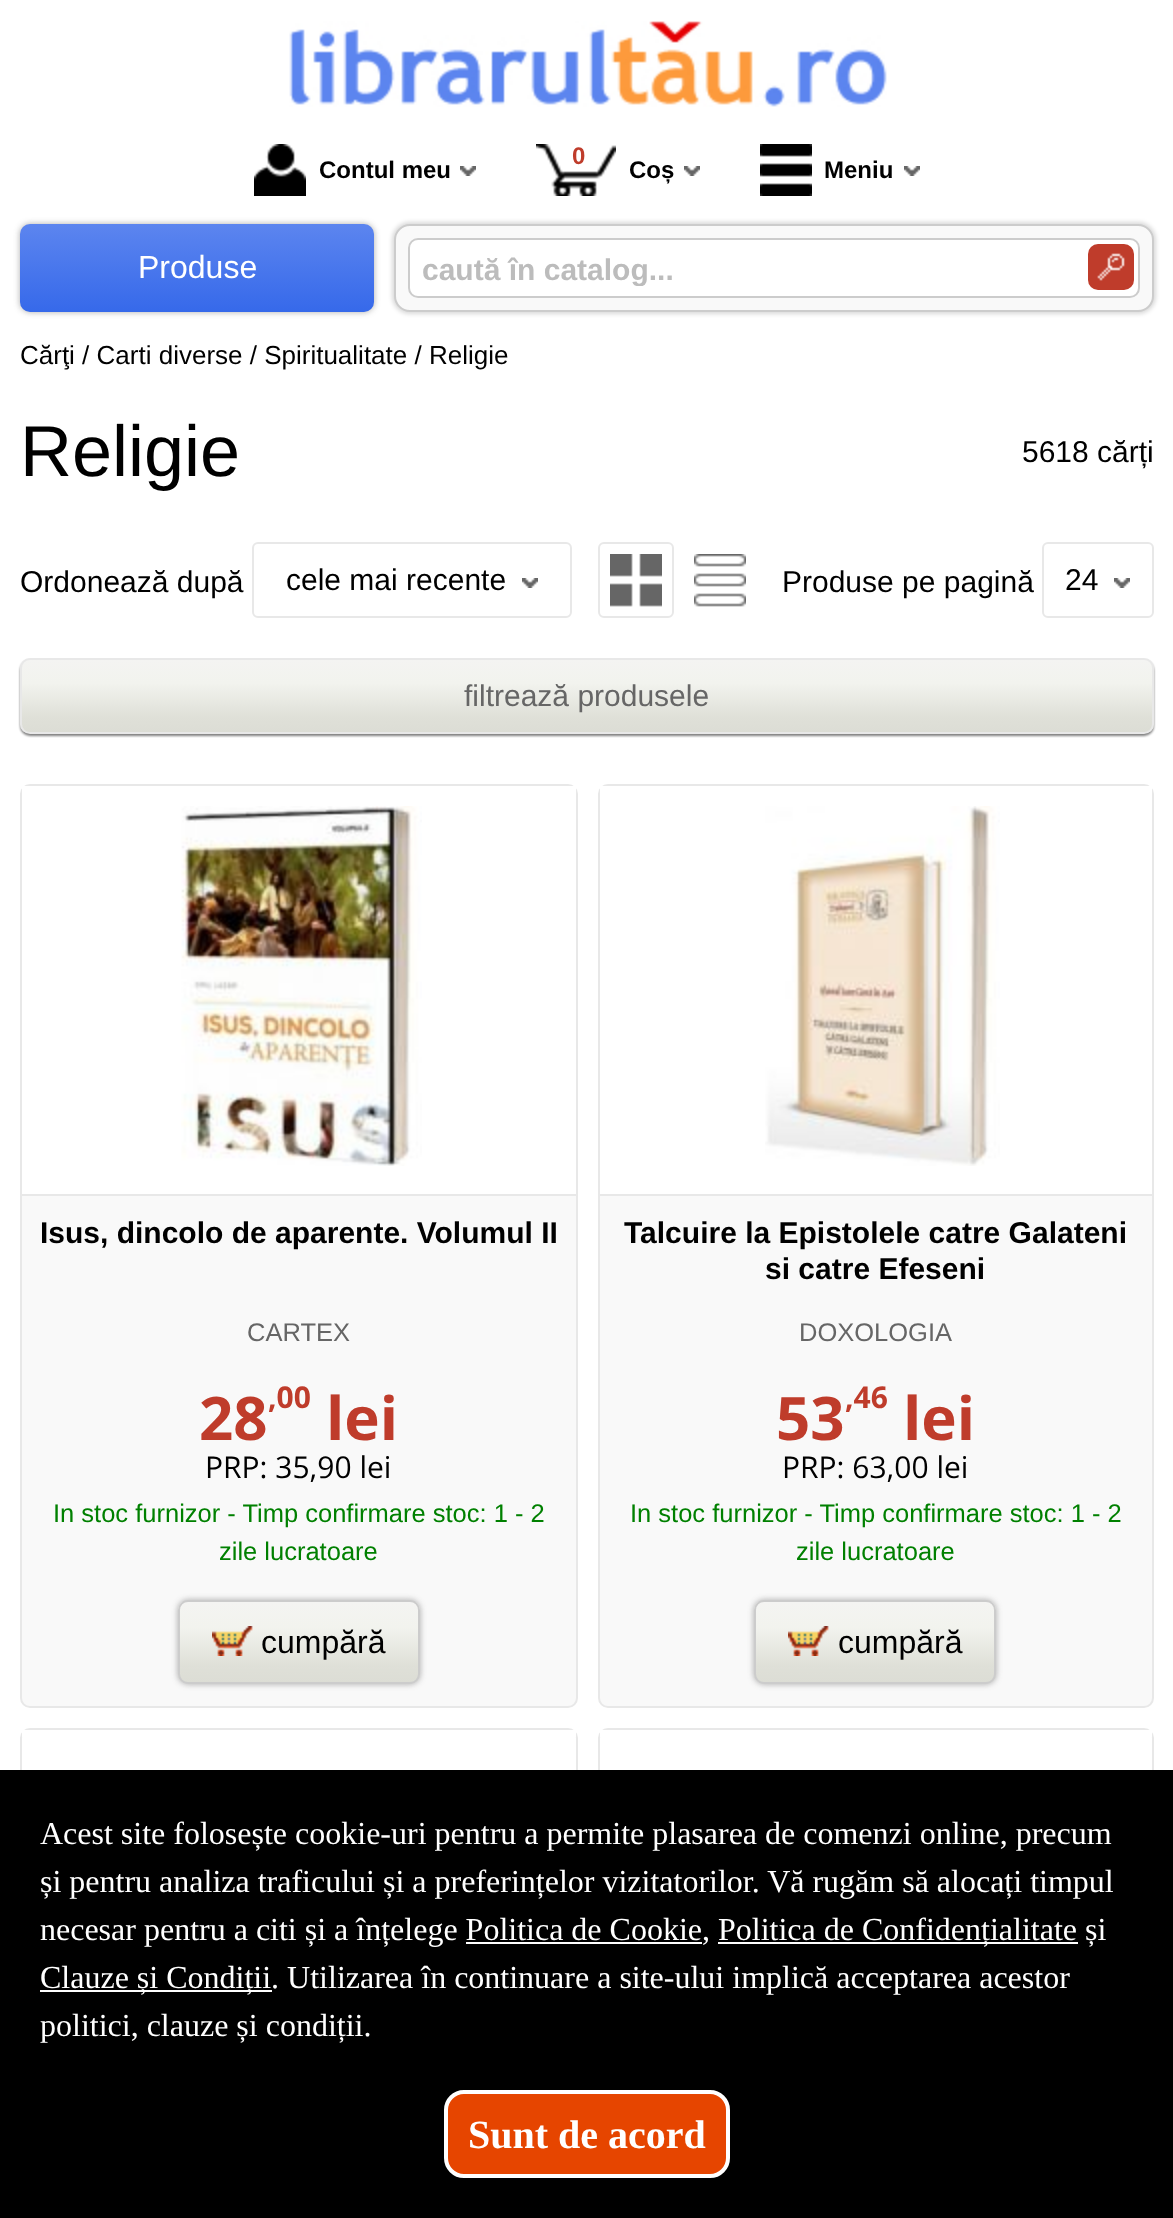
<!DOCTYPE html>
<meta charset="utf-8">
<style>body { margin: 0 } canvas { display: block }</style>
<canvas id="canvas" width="1173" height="2218"></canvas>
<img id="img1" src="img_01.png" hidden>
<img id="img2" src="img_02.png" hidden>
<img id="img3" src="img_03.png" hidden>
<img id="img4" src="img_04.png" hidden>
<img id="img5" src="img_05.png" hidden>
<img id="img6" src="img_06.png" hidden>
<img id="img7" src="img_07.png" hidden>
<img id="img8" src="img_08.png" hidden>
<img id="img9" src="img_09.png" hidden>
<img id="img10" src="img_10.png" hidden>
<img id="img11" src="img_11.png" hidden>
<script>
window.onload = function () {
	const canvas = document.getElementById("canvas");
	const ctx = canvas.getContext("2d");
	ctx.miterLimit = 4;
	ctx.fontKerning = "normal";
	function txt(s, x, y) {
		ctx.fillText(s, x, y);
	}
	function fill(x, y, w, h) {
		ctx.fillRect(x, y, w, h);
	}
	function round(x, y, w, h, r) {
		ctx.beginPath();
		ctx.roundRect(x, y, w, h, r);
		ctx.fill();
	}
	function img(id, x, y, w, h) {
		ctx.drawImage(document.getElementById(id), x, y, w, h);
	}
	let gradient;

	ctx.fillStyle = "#FFFFFF";
	fill(0, 0, 1173, 2218);
	img("img1", 289, 21, 598, 86);
	img("img2", 254, 144, 52, 52);
	img("img3", 460, 166, 16, 10);
	img("img4", 536, 144, 80, 52);
	img("img3", 684, 166, 16, 10);
	img("img5", 760, 144, 52, 52);
	img("img3", 904, 166, 16, 10);
	ctx.fillStyle = "rgba(50, 50, 50, 0.4)";
	ctx.filter = "blur(3px)";
	ctx.beginPath();
	ctx.roundRect(20, 224, 354, 88, 10);
	ctx.fill();
	ctx.filter = "none";
	gradient = ctx.createLinearGradient(197, 224, 197, 312);
	gradient.addColorStop(0, "#5C85EF");
	gradient.addColorStop(1, "#3669EA");
	ctx.fillStyle = gradient;
	round(20, 224, 354, 88, 10);
	ctx.fillStyle = "rgba(0, 0, 0, 0.15)";
	ctx.filter = "blur(2px)";
	ctx.beginPath();
	ctx.roundRect(392, 222, 764, 92, 18);
	ctx.fill();
	ctx.filter = "none";
	ctx.fillStyle = "#F9F9F9";
	ctx.beginPath();
	ctx.roundRect(395, 225, 758, 86, 15);
	ctx.fill();
	ctx.strokeStyle = "#CCCCCC";
	ctx.lineWidth = 2;
	ctx.stroke();
	ctx.fillStyle = "#FFFFFF";
	ctx.beginPath();
	ctx.roundRect(409, 239, 730, 58, 9);
	ctx.fill();
	ctx.stroke();
	ctx.fillStyle = "#BF3C2B";
	round(1088, 244, 46, 46, 10);
	img("img6", 1097, 253, 28, 28);
	ctx.beginPath();
	ctx.roundRect(253, 543, 318, 74, 5);
	ctx.strokeStyle = "#E8E8E8";
	ctx.stroke();
	img("img3", 522, 578, 16, 10);
	ctx.beginPath();
	ctx.roundRect(599, 543, 74, 74, 5);
	ctx.stroke();
	img("img7", 610, 554, 52, 53);
	img("img8", 694, 554, 52, 53);
	ctx.beginPath();
	ctx.roundRect(1043, 543, 110, 74, 5);
	ctx.stroke();
	img("img3", 1114, 578, 16, 10);
	ctx.fillStyle = "rgba(0, 0, 0, 0.5)";
	ctx.filter = "blur(1px)";
	ctx.beginPath();
	ctx.roundRect(20, 660, 1134, 76, 10);
	ctx.fill();
	ctx.filter = "none";
	ctx.save();
	ctx.beginPath();
	ctx.roundRect(20, 658, 1134, 76, 10);
	ctx.clip();
	gradient = ctx.createLinearGradient(587, 660, 587, 732);
	gradient.addColorStop(0, "#F4F4F2");
	gradient.addColorStop(0.32, "#F2F3EE");
	gradient.addColorStop(0.79, "#DFE0D8");
	gradient.addColorStop(1, "#DCDDD5");
	ctx.fillStyle = gradient;
	fill(20, 660, 1134, 72);
	ctx.restore();
	ctx.beginPath();
	ctx.roundRect(21, 659, 1132, 74, 9);
	ctx.stroke();
	ctx.fillStyle = "#F9F9F9";
	ctx.beginPath();
	ctx.roundRect(21, 785, 556, 922, 9);
	ctx.fill();
	ctx.stroke();
	ctx.fillStyle = "#FFFFFF";
	fill(22, 786, 554, 408);
	ctx.fillStyle = "#E8E8E8";
	fill(22, 1194, 554, 2);
	img("img9", 181, 806, 241, 360);
	ctx.fillStyle = "rgba(50, 50, 50, 0.4)";
	ctx.filter = "blur(3px)";
	ctx.beginPath();
	ctx.roundRect(178, 1600, 242, 84, 10);
	ctx.fill();
	ctx.filter = "none";
	ctx.save();
	ctx.beginPath();
	ctx.roundRect(178, 1600, 242, 84, 10);
	ctx.clip();
	gradient = ctx.createLinearGradient(299, 1602, 299, 1682);
	gradient.addColorStop(0, "#F4F4F2");
	gradient.addColorStop(0.32, "#F2F3EE");
	gradient.addColorStop(0.79, "#DFE0D8");
	gradient.addColorStop(1, "#DCDDD5");
	ctx.fillStyle = gradient;
	fill(178, 1602, 242, 80);
	ctx.restore();
	ctx.beginPath();
	ctx.roundRect(179, 1601, 240, 82, 9);
	ctx.strokeStyle = "#CCCCCC";
	ctx.stroke();
	img("img10", 212, 1626, 41, 30);
	ctx.fillStyle = "#F9F9F9";
	ctx.beginPath();
	ctx.roundRect(599, 785, 554, 922, 9);
	ctx.fill();
	ctx.strokeStyle = "#E8E8E8";
	ctx.stroke();
	ctx.fillStyle = "#FFFFFF";
	fill(600, 786, 552, 408);
	ctx.fillStyle = "#E8E8E8";
	fill(600, 1194, 552, 2);
	img("img11", 765, 806, 235, 360);
	ctx.fillStyle = "rgba(50, 50, 50, 0.4)";
	ctx.filter = "blur(3px)";
	ctx.beginPath();
	ctx.roundRect(754, 1600, 242, 84, 10);
	ctx.fill();
	ctx.filter = "none";
	ctx.save();
	ctx.beginPath();
	ctx.roundRect(754, 1600, 242, 84, 10);
	ctx.clip();
	gradient = ctx.createLinearGradient(875, 1602, 875, 1682);
	gradient.addColorStop(0, "#F4F4F2");
	gradient.addColorStop(0.32, "#F2F3EE");
	gradient.addColorStop(0.79, "#DFE0D8");
	gradient.addColorStop(1, "#DCDDD5");
	ctx.fillStyle = gradient;
	fill(754, 1602, 242, 80);
	ctx.restore();
	ctx.beginPath();
	ctx.roundRect(755, 1601, 240, 82, 9);
	ctx.strokeStyle = "#CCCCCC";
	ctx.stroke();
	img("img10", 788, 1626, 41, 30);
	ctx.beginPath();
	ctx.roundRect(21, 1729, 556, 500, 9);
	ctx.strokeStyle = "#E8E8E8";
	ctx.stroke();
	ctx.fillStyle = "#FFFFFF";
	fill(22, 1730, 554, 7);
	ctx.beginPath();
	ctx.roundRect(599, 1729, 554, 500, 9);
	ctx.stroke();
	fill(600, 1730, 552, 7);
	ctx.fillStyle = "#000000";
	fill(0, 1770, 1173, 448);
	ctx.fillStyle = "#FFFFFF";
	fill(718, 1942, 360, 2);
	fill(466, 1942, 236, 2);
	fill(40, 1990, 232, 2);
	ctx.fillStyle = "#E64500";
	ctx.beginPath();
	ctx.roundRect(446, 2092, 282, 84, 18);
	ctx.fill();
	ctx.strokeStyle = "#FFFFFF";
	ctx.lineWidth = 4;
	ctx.stroke();
	ctx.font = "bold 24px Liberation Sans";
	ctx.fillStyle = "#000000";
	txt("Contul meu", 319, 178);
	ctx.fillStyle = "#BF3C2B";
	txt("0", 572, 164);
	ctx.fillStyle = "#000000";
	txt("Coș", 629, 178);
	txt("Meniu", 824, 178);
	ctx.font = "32px Liberation Sans";
	ctx.fillStyle = "#FFFFFF";
	txt("Produse", 138, 278);
	ctx.save();
	ctx.beginPath();
	ctx.rect(422, 252, 624, 34);
	ctx.clip();
	ctx.font = "bold 30px Liberation Sans";
	ctx.fillStyle = "#BCBCBC";
	txt("caută în catalog...", 422, 280);
	ctx.restore();
	ctx.font = "26px Liberation Sans";
	ctx.fillStyle = "#000000";
	txt("Cărţi / Carti diverse / Spiritualitate / Religie", 20, 364);
	ctx.font = "72px Liberation Sans";
	txt("Religie", 20, 476);
	ctx.font = "30px Liberation Sans";
	txt("5618 cărți", 1022, 462);
	txt("Ordonează după", 20, 592);
	txt("cele mai recente", 286, 590);
	txt("Produse pe pagină", 782, 592);
	txt("24", 1065, 590);
	ctx.fillStyle = "#666666";
	txt("filtrează produsele", 464, 706);
	ctx.font = "bold 30px Liberation Sans";
	ctx.fillStyle = "#000000";
	txt("Isus, dincolo de aparente. Volumul II", 40, 1243);
	ctx.font = "25.5px Liberation Sans";
	ctx.fillStyle = "#666666";
	txt("CARTEX", 247, 1341);
	ctx.font = "bold 60px Open Sans";
	ctx.fillStyle = "#BF3C2B";
	txt("28", 199, 1440);
	ctx.font = "bold 30px Open Sans";
	txt(",00", 268, 1408);
	ctx.font = "bold 60px Open Sans";
	txt("lei", 326, 1440);
	ctx.font = "30px Open Sans";
	ctx.fillStyle = "#000000";
	txt("PRP: 35,90 lei", 205, 1478);
	ctx.font = "25.5px Liberation Sans";
	ctx.fillStyle = "#008000";
	txt("In stoc furnizor - Timp confirmare stoc: 1 - 2", 53, 1522);
	txt("zile lucratoare", 219, 1560);
	ctx.font = "32px Liberation Sans";
	ctx.fillStyle = "#000000";
	txt("cumpără", 261, 1653);
	ctx.font = "bold 30px Liberation Sans";
	txt("Talcuire la Epistolele catre Galateni", 624, 1243);
	txt("si catre Efeseni", 765, 1279);
	ctx.font = "25.5px Liberation Sans";
	ctx.fillStyle = "#666666";
	txt("DOXOLOGIA", 799, 1341);
	ctx.font = "bold 60px Open Sans";
	ctx.fillStyle = "#BF3C2B";
	txt("53", 776, 1440);
	ctx.font = "bold 30px Open Sans";
	txt(",46", 845, 1408);
	ctx.font = "bold 60px Open Sans";
	txt("lei", 903, 1440);
	ctx.font = "30px Open Sans";
	ctx.fillStyle = "#000000";
	txt("PRP: 63,00 lei", 782, 1478);
	ctx.font = "25.5px Liberation Sans";
	ctx.fillStyle = "#008000";
	txt("In stoc furnizor - Timp confirmare stoc: 1 - 2", 630, 1522);
	txt("zile lucratoare", 796, 1560);
	ctx.font = "32px Liberation Sans";
	ctx.fillStyle = "#000000";
	txt("cumpără", 838, 1653);
	ctx.font = "32px Liberation Serif";
	ctx.fillStyle = "#FFFFFF";
	txt("Acest site folosește cookie-uri pentru a permite plasarea de comenzi online, precum", 40, 1844);
	txt("și pentru analiza traficului și a preferințelor vizitatorilor. Vă rugăm să alocați timpul", 40, 1892);
	txt("necesar pentru a citi și a înțelege Politica de Cookie,", 40, 1940);
	txt("Politica de Confidențialitate și", 718, 1940);
	txt("Clauze și Condiții. Utilizarea în continuare a site-ului implică acceptarea acestor", 40, 1988);
	txt("politici, clauze și condiții.", 40, 2036);
	ctx.font = "bold 40px Liberation Serif";
	txt("Sunt de acord", 468, 2148);
};
</script>
